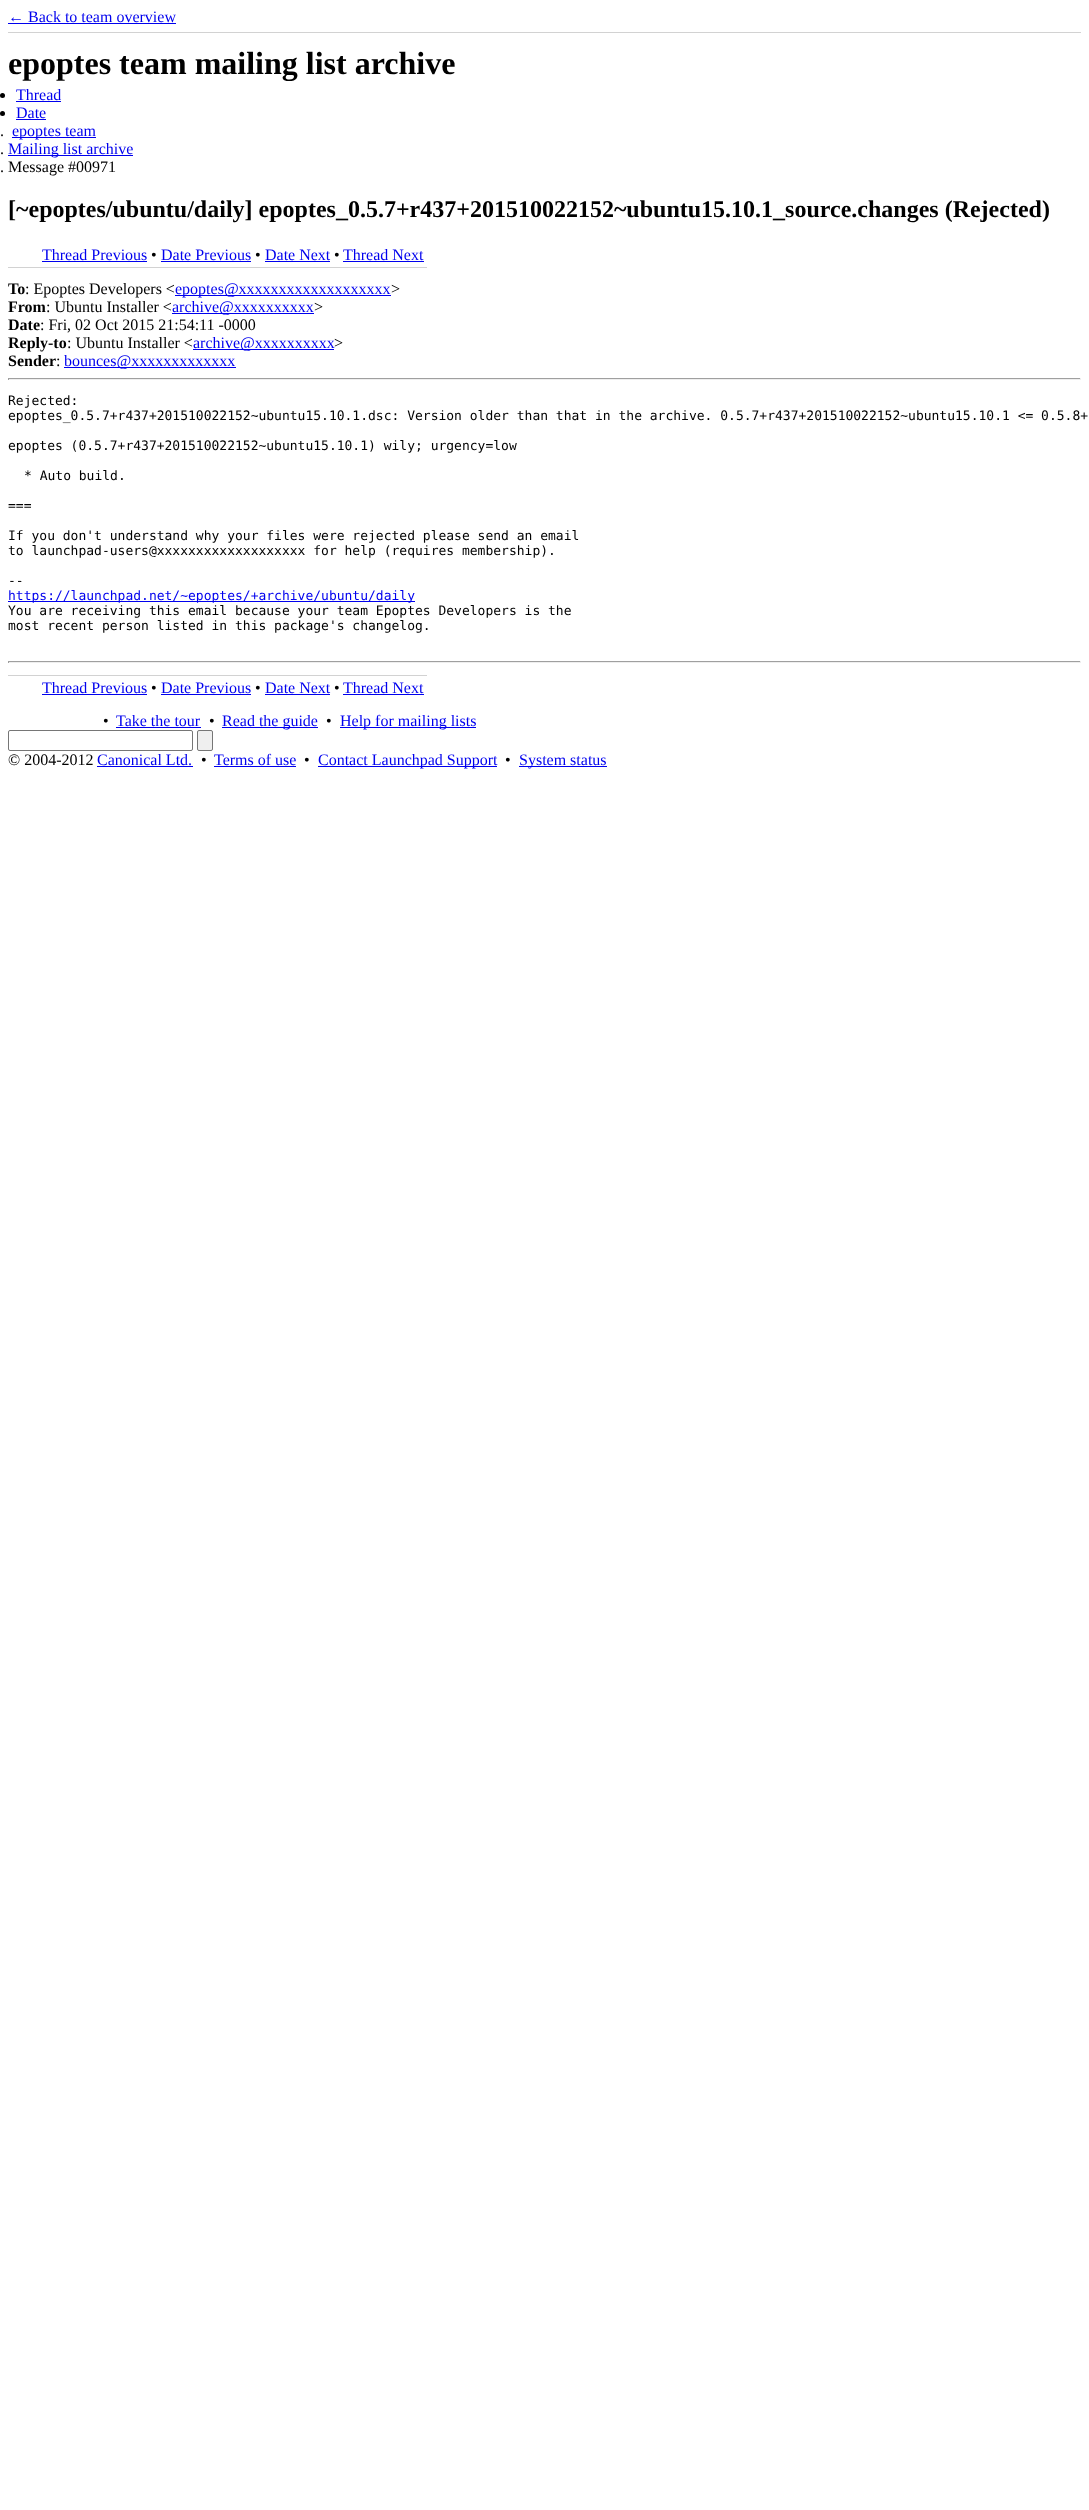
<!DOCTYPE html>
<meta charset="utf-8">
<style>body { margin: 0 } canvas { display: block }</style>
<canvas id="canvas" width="1089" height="2510"></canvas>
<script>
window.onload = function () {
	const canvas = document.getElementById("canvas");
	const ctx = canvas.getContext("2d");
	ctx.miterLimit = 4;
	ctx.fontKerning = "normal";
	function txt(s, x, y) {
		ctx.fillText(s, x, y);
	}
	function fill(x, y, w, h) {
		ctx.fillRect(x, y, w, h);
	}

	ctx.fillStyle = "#FFFFFF";
	fill(0, 0, 1089, 2510);
	ctx.fillStyle = "#D2D2D2";
	fill(8, 32, 1073, 1);
	ctx.fillStyle = "#0000EE";
	fill(8, 23, 168, 1);
	ctx.fillStyle = "#000000";
	ctx.beginPath();
	ctx.arc(2.5, 95.5, 2.5, 0, Math.PI * 2);
	ctx.fill();
	ctx.fillStyle = "#0000EE";
	fill(16, 101, 45, 1);
	ctx.fillStyle = "#000000";
	ctx.beginPath();
	ctx.arc(2.5, 113.5, 2.5, 0, Math.PI * 2);
	ctx.fill();
	ctx.fillStyle = "#0000EE";
	fill(16, 119, 30, 1);
	fill(12, 137, 84, 1);
	fill(8, 155, 125, 1);
	ctx.fillStyle = "#D2D2D2";
	fill(8, 267, 419, 1);
	ctx.fillStyle = "#0000EE";
	fill(42, 261, 105, 1);
	fill(161, 261, 90, 1);
	fill(265, 261, 65, 1);
	fill(343, 261, 81, 1);
	fill(175, 295, 216, 1);
	fill(172, 313, 142, 1);
	fill(193, 349, 141, 1);
	fill(64, 367, 172, 1);
	ctx.fillStyle = "#9F9F9F";
	fill(8, 378, 1073, 1);
	ctx.fillStyle = "#EEEEEE";
	fill(1080, 378, 1, 2);
	fill(8, 379, 1073, 1);
	ctx.fillStyle = "#9F9F9F";
	fill(8, 378, 1, 2);
	ctx.fillStyle = "#0000EE";
	fill(8, 601, 407, 1);
	ctx.fillStyle = "#9F9F9F";
	fill(8, 661, 1073, 1);
	ctx.fillStyle = "#EEEEEE";
	fill(1080, 661, 1, 2);
	fill(8, 662, 1073, 1);
	ctx.fillStyle = "#9F9F9F";
	fill(8, 661, 1, 2);
	ctx.fillStyle = "#D2D2D2";
	fill(8, 675, 419, 1);
	ctx.fillStyle = "#0000EE";
	fill(42, 694, 105, 1);
	fill(161, 694, 90, 1);
	fill(265, 694, 65, 1);
	fill(343, 694, 81, 1);
	fill(116, 727, 85, 1);
	fill(222, 727, 96, 1);
	fill(340, 727, 136, 1);
	ctx.beginPath();
	ctx.roundRect(8.5, 730.5, 184, 20, 1.5);
	ctx.strokeStyle = "#767676";
	ctx.stroke();
	ctx.fillStyle = "#EFEFEF";
	ctx.beginPath();
	ctx.roundRect(197.5, 730.5, 15, 20, 1.5);
	ctx.fill();
	ctx.stroke();
	ctx.fillStyle = "#0000EE";
	fill(97, 766, 96, 1);
	fill(214, 766, 82, 1);
	fill(318, 766, 179, 1);
	fill(519, 766, 88, 1);
	ctx.font = "16px Liberation Serif";
	txt("← Back to team overview", 8, 22);
	ctx.font = "bold 32px Liberation Serif";
	ctx.fillStyle = "#000000";
	txt("epoptes team mailing list archive", 8, 74);
	ctx.font = "16px Liberation Serif";
	ctx.fillStyle = "#0000EE";
	txt("Thread", 16, 100);
	txt("Date", 16, 118);
	ctx.fillStyle = "#000000";
	txt(".", 0, 136);
	ctx.fillStyle = "#0000EE";
	txt("epoptes team", 12, 136);
	ctx.fillStyle = "#000000";
	txt(".", 0, 154);
	ctx.fillStyle = "#0000EE";
	txt("Mailing list archive", 8, 154);
	ctx.fillStyle = "#000000";
	txt(". Message #00971", 0, 172);
	ctx.font = "bold 24px Liberation Serif";
	txt("[~epoptes/ubuntu/daily] epoptes_0.5.7+r437+201510022152~ubuntu15.10.1_source.changes (Rejected)", 8, 217);
	ctx.font = "16px Liberation Serif";
	ctx.fillStyle = "#0000EE";
	txt("Thread Previous", 42, 260);
	ctx.fillStyle = "#000000";
	txt("•", 151, 260);
	ctx.fillStyle = "#0000EE";
	txt("Date Previous", 161, 260);
	ctx.fillStyle = "#000000";
	txt("•", 255, 260);
	ctx.fillStyle = "#0000EE";
	txt("Date Next", 265, 260);
	ctx.fillStyle = "#000000";
	txt("•", 334, 260);
	ctx.fillStyle = "#0000EE";
	txt("Thread Next", 343, 260);
	ctx.font = "bold 16px Liberation Serif";
	ctx.fillStyle = "#000000";
	txt("To", 8, 294);
	ctx.font = "16px Liberation Serif";
	txt(": Epoptes Developers <", 25, 294);
	ctx.fillStyle = "#0000EE";
	txt("epoptes@xxxxxxxxxxxxxxxxxxx", 175, 294);
	ctx.fillStyle = "#000000";
	txt(">", 391, 294);
	ctx.font = "bold 16px Liberation Serif";
	txt("From", 8, 312);
	ctx.font = "16px Liberation Serif";
	txt(": Ubuntu Installer <", 46, 312);
	ctx.fillStyle = "#0000EE";
	txt("archive@xxxxxxxxxx", 172, 312);
	ctx.fillStyle = "#000000";
	txt(">", 314, 312);
	ctx.font = "bold 16px Liberation Serif";
	txt("Date", 8, 330);
	ctx.font = "16px Liberation Serif";
	txt(": Fri, 02 Oct 2015 21:54:11 -0000", 40, 330);
	ctx.font = "bold 16px Liberation Serif";
	txt("Reply-to", 8, 348);
	ctx.font = "16px Liberation Serif";
	txt(": Ubuntu Installer <", 67, 348);
	ctx.fillStyle = "#0000EE";
	txt("archive@xxxxxxxxxx", 193, 348);
	ctx.fillStyle = "#000000";
	txt(">", 334, 348);
	ctx.font = "bold 16px Liberation Serif";
	txt("Sender", 8, 366);
	ctx.font = "16px Liberation Serif";
	txt(":", 56, 366);
	ctx.fillStyle = "#0000EE";
	txt("bounces@xxxxxxxxxxxxx", 64, 366);
	ctx.font = "13px DejaVu Sans Mono";
	ctx.fillStyle = "#000000";
	txt("Rejected:", 8, 405);
	txt("epoptes_0.5.7+r437+201510022152~ubuntu15.10.1.dsc: Version older than that in the archive. 0.5.7+r437+201510022152~ubuntu15.10.1 <= 0.5.8+", 8, 420);
	txt("epoptes (0.5.7+r437+201510022152~ubuntu15.10.1) wily; urgency=low", 8, 450);
	txt("* Auto build.", 24, 480);
	txt("===", 8, 510);
	txt("If you don't understand why your files were rejected please send an email", 8, 540);
	txt("to launchpad-users@xxxxxxxxxxxxxxxxxxx for help (requires membership).", 8, 555);
	txt("--", 8, 585);
	ctx.fillStyle = "#0000EE";
	txt("https://launchpad.net/~epoptes/+archive/ubuntu/daily", 8, 600);
	ctx.fillStyle = "#000000";
	txt("You are receiving this email because your team Epoptes Developers is the", 8, 615);
	txt("most recent person listed in this package's changelog.", 8, 630);
	ctx.font = "16px Liberation Serif";
	ctx.fillStyle = "#0000EE";
	txt("Thread Previous", 42, 693);
	ctx.fillStyle = "#000000";
	txt("•", 151, 693);
	ctx.fillStyle = "#0000EE";
	txt("Date Previous", 161, 693);
	ctx.fillStyle = "#000000";
	txt("•", 255, 693);
	ctx.fillStyle = "#0000EE";
	txt("Date Next", 265, 693);
	ctx.fillStyle = "#000000";
	txt("•", 334, 693);
	ctx.fillStyle = "#0000EE";
	txt("Thread Next", 343, 693);
	ctx.fillStyle = "#000000";
	txt("•", 103, 726);
	ctx.fillStyle = "#0000EE";
	txt("Take the tour", 116, 726);
	ctx.fillStyle = "#000000";
	txt("•", 209, 726);
	ctx.fillStyle = "#0000EE";
	txt("Read the guide", 222, 726);
	ctx.fillStyle = "#000000";
	txt("•", 326, 726);
	ctx.fillStyle = "#0000EE";
	txt("Help for mailing lists", 340, 726);
	ctx.fillStyle = "#000000";
	txt("© 2004-2012", 8, 765);
	ctx.fillStyle = "#0000EE";
	txt("Canonical Ltd.", 97, 765);
	ctx.fillStyle = "#000000";
	txt("•", 201, 765);
	ctx.fillStyle = "#0000EE";
	txt("Terms of use", 214, 765);
	ctx.fillStyle = "#000000";
	txt("•", 304, 765);
	ctx.fillStyle = "#0000EE";
	txt("Contact Launchpad Support", 318, 765);
	ctx.fillStyle = "#000000";
	txt("•", 505, 765);
	ctx.fillStyle = "#0000EE";
	txt("System status", 519, 765);
};
</script>
